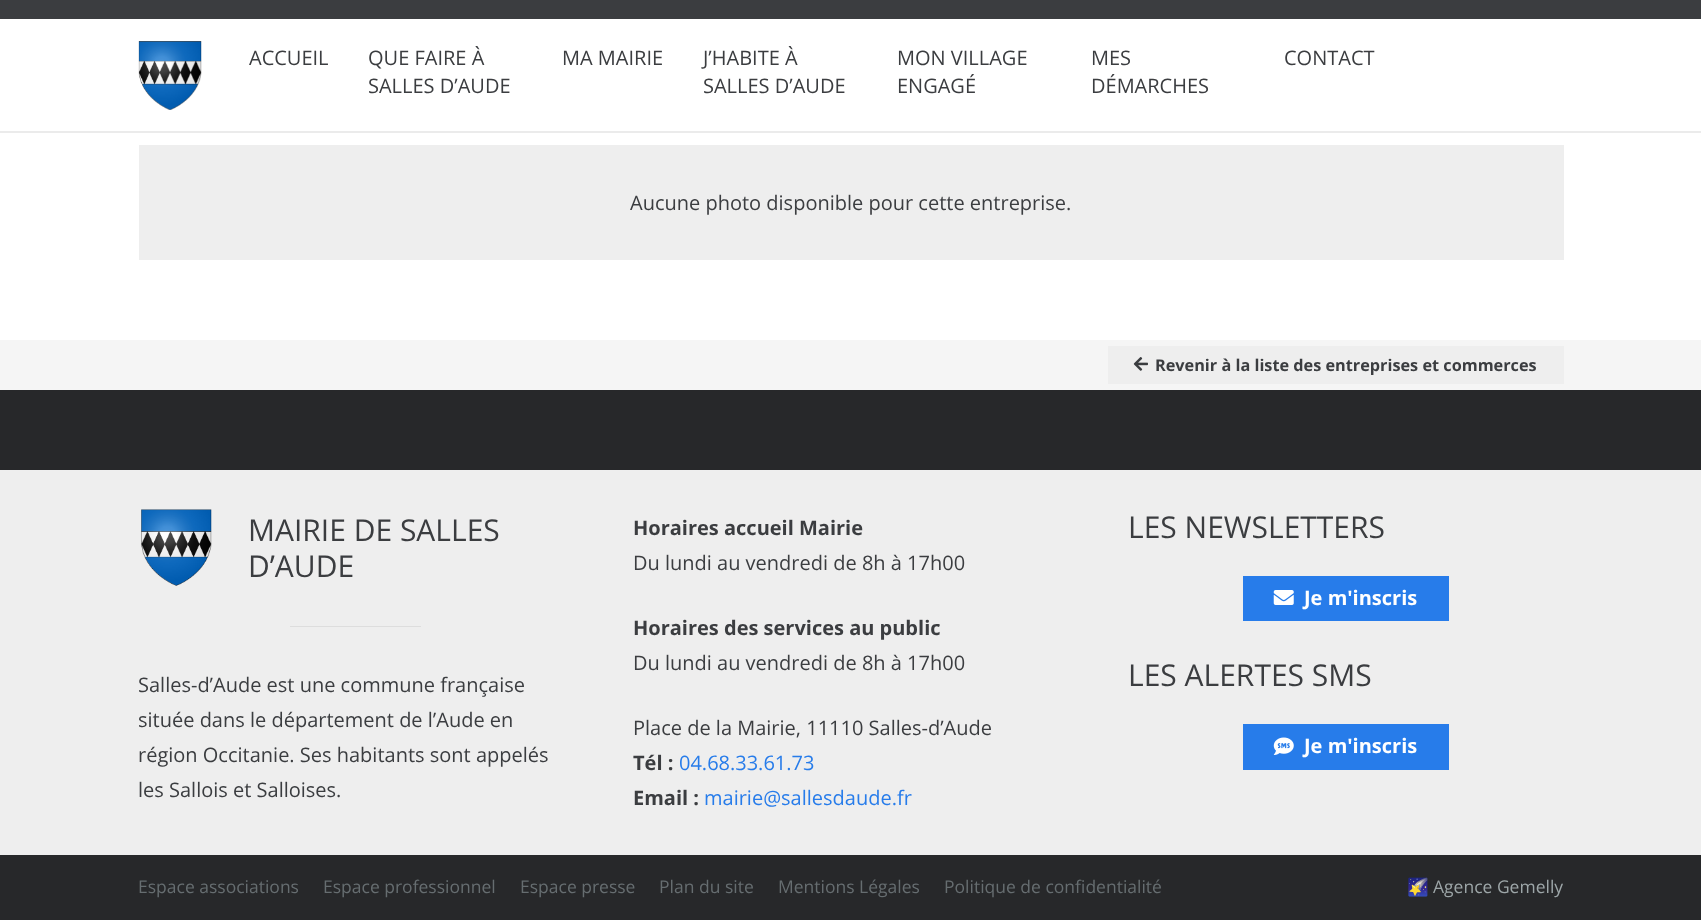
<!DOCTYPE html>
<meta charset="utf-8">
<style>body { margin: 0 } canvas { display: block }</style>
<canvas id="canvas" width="1701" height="920"></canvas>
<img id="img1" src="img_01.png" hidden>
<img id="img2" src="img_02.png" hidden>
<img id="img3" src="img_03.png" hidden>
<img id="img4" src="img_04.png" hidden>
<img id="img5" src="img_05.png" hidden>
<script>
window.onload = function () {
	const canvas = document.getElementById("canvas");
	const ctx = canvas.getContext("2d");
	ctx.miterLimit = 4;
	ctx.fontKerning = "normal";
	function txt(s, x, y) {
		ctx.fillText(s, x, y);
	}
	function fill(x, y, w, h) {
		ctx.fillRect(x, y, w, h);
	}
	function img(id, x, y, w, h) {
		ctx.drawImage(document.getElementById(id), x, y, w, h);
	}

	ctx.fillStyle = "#FFFFFF";
	fill(0, 0, 1701, 920);
	ctx.fillStyle = "#3B3D40";
	fill(0, 0, 1701, 19);
	ctx.fillStyle = "#EBEBEB";
	fill(0, 131, 1701, 2);
	img("img1", 138, 41, 64, 69);
	ctx.fillStyle = "#EEEEEE";
	fill(139, 145, 1425, 115);
	ctx.fillStyle = "#F5F5F5";
	fill(0, 340, 1701, 50);
	ctx.fillStyle = "#EEEEEE";
	fill(1108, 346, 456, 38);
	img("img2", 1133, 357, 15, 14);
	ctx.fillStyle = "#27282A";
	fill(0, 390, 1701, 80);
	ctx.fillStyle = "#EEEEEE";
	fill(0, 470, 1701, 385);
	img("img3", 141, 509, 71, 77);
	ctx.fillStyle = "#DDDDDD";
	fill(290, 626, 131, 1);
	ctx.fillStyle = "#277CEA";
	fill(1243, 576, 206, 45);
	img("img4", 1273, 590, 21, 15);
	fill(1243, 724, 206, 46);
	img("img5", 1273, 737, 21, 18);
	ctx.fillStyle = "#27282A";
	fill(0, 855, 1701, 65);
	ctx.font = "20px Open Sans";
	ctx.fillStyle = "#3B3D40";
	txt("ACCUEIL", 249, 65);
	txt("QUE FAIRE À", 368, 65);
	txt("SALLES D’AUDE", 368, 93);
	txt("MA MAIRIE", 562, 65);
	txt("J’HABITE À", 703, 65);
	txt("SALLES D’AUDE", 703, 93);
	txt("MON VILLAGE", 897, 65);
	txt("ENGAGÉ", 897, 93);
	txt("MES", 1091, 65);
	txt("DÉMARCHES", 1091, 93);
	txt("CONTACT", 1284, 65);
	txt("Aucune photo disponible pour cette entreprise.", 630, 210);
	ctx.font = "bold 16.25px Open Sans";
	txt("Revenir à la liste des entreprises et commerces", 1155, 371);
	ctx.font = "30px Open Sans";
	txt("MAIRIE DE SALLES", 248, 541);
	txt("D’AUDE", 248, 577);
	ctx.font = "20px Open Sans";
	txt("Salles-d’Aude est une commune française", 138, 692);
	txt("située dans le département de l’Aude en", 138, 727);
	txt("région Occitanie. Ses habitants sont appelés", 138, 762);
	txt("les Sallois et Salloises.", 138, 797);
	ctx.font = "bold 20px Open Sans";
	txt("Horaires accueil Mairie", 633, 535);
	ctx.font = "20px Open Sans";
	txt("Du lundi au vendredi de 8h à 17h00", 633, 570);
	ctx.font = "bold 20px Open Sans";
	txt("Horaires des services au public", 633, 635);
	ctx.font = "20px Open Sans";
	txt("Du lundi au vendredi de 8h à 17h00", 633, 670);
	txt("Place de la Mairie, 11110 Salles-d’Aude", 633, 735);
	ctx.font = "bold 20px Open Sans";
	txt("Tél :", 633, 770);
	ctx.font = "20px Open Sans";
	ctx.fillStyle = "#277CEA";
	txt("04.68.33.61.73", 679, 770);
	ctx.font = "bold 20px Open Sans";
	ctx.fillStyle = "#3B3D40";
	txt("Email :", 633, 805);
	ctx.font = "20px Open Sans";
	ctx.fillStyle = "#277CEA";
	txt("mairie@sallesdaude.fr", 704, 805);
	ctx.font = "30px Open Sans";
	ctx.fillStyle = "#3B3D40";
	txt("LES NEWSLETTERS", 1128, 538);
	ctx.font = "bold 20px Open Sans";
	ctx.fillStyle = "#FFFFFF";
	txt("Je m'inscris", 1304, 605);
	ctx.font = "30px Open Sans";
	ctx.fillStyle = "#3B3D40";
	txt("LES ALERTES SMS", 1128, 686);
	ctx.font = "bold 20px Open Sans";
	ctx.fillStyle = "#FFFFFF";
	txt("Je m'inscris", 1304, 753);
	ctx.font = "17.5px Open Sans";
	ctx.fillStyle = "#666D70";
	txt("Espace associations", 138, 893);
	txt("Espace professionnel", 323, 893);
	txt("Espace presse", 520, 893);
	txt("Plan du site", 659, 893);
	txt("Mentions Légales", 778, 893);
	txt("Politique de confidentialité", 944, 893);
	ctx.font = "17.5px Noto Color Emoji";
	ctx.fillStyle = "#9DA6A8";
	txt("🌠", 1407, 893);
	ctx.font = "17.5px Open Sans";
	txt("Agence Gemelly", 1433, 893);
};
</script>
